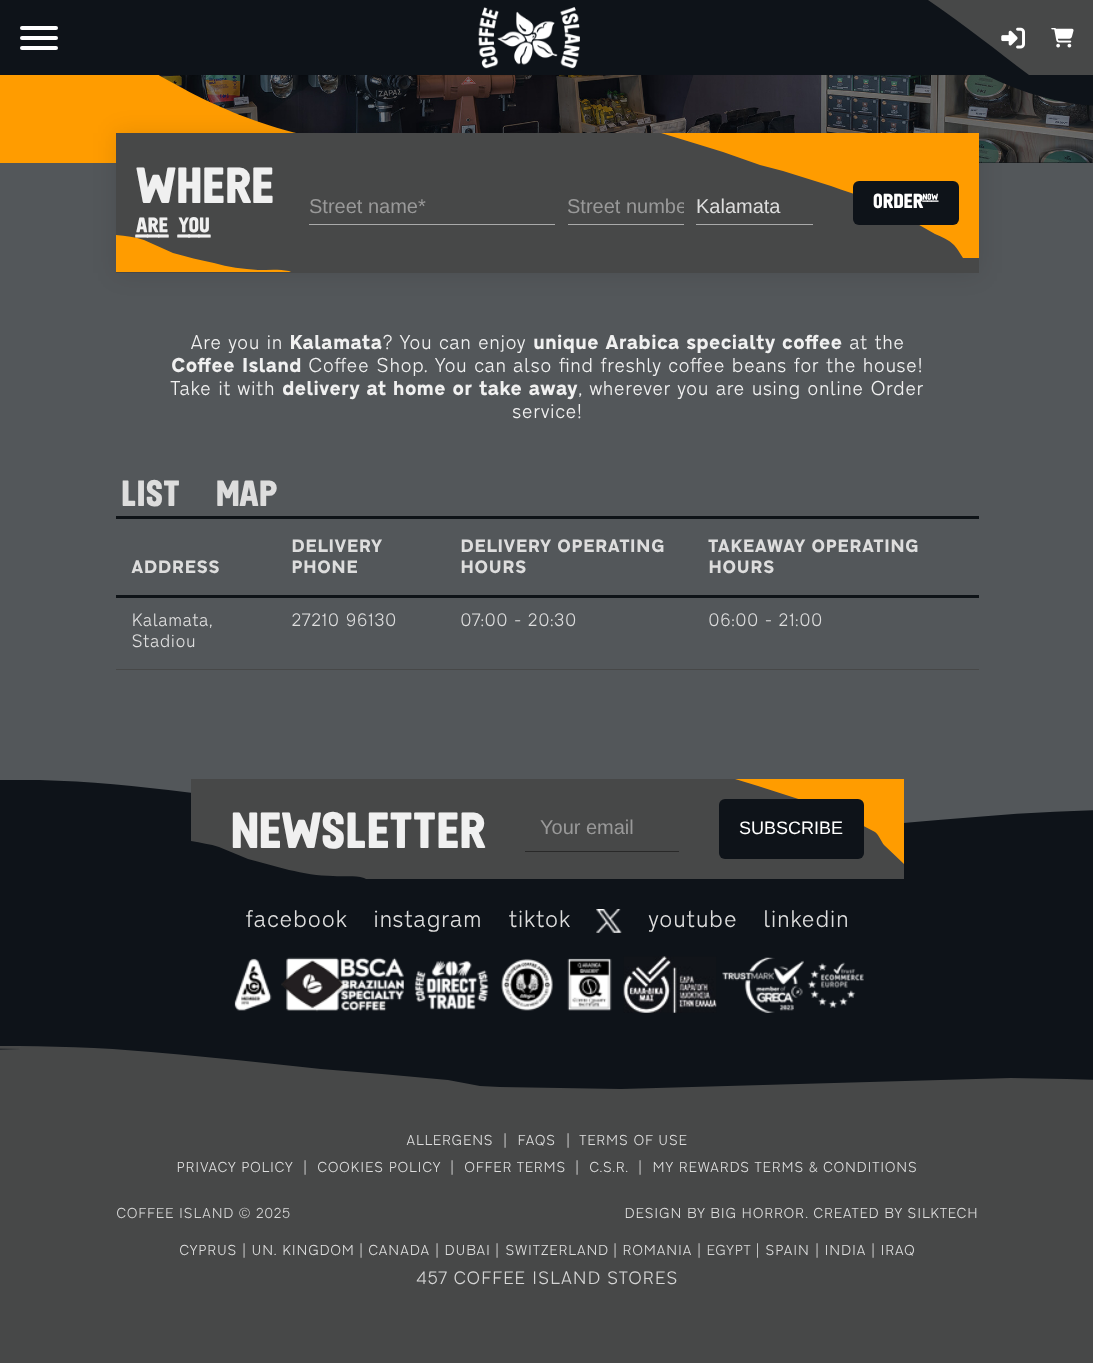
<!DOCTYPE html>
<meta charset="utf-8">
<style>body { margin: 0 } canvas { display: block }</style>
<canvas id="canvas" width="1093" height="1363"></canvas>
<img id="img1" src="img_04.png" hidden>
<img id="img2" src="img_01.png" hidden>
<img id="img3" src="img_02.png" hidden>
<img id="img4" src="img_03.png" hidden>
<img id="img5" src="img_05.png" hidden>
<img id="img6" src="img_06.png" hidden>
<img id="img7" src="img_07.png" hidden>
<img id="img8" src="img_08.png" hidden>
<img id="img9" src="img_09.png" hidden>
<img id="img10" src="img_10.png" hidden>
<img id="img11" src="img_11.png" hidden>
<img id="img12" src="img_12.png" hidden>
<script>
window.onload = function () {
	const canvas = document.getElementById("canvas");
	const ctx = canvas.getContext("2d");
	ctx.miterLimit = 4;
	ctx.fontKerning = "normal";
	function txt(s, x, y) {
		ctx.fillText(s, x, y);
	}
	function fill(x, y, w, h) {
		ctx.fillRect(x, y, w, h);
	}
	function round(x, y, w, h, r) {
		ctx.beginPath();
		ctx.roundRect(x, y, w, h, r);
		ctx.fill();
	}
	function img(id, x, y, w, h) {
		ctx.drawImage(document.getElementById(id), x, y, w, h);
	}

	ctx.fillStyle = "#474848";
	fill(0, 0, 1093, 1363);
	ctx.fillStyle = "#0E1319";
	fill(979, 162, 114, 1);
	img("img1", 159, 75, 934, 88);
	ctx.save();
	ctx.beginPath();
	ctx.rect(0, 13, 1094, 150);
	ctx.clip();
	ctx.fillStyle = "#FF9C00";
	ctx.beginPath();
	ctx.moveTo(514, 165);
	ctx.bezierCurveTo(489, 159, 463, 152, 446, 151);
	ctx.bezierCurveTo(169, 148, 135, 12, -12, 12);
	ctx.lineTo(-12, 165);
	ctx.closePath();
	ctx.fill();
	ctx.restore();
	ctx.beginPath();
	ctx.moveTo(518, -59);
	ctx.lineTo(518, -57);
	ctx.bezierCurveTo(545, -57, 621, -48, 655, -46);
	ctx.bezierCurveTo(868, -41, 958, 106, 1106, 106);
	ctx.lineTo(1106, -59);
	ctx.closePath();
	ctx.fill();
	fill(0, 0, 986, 75);
	ctx.fillStyle = "#474848";
	ctx.beginPath();
	ctx.moveTo(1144, 0);
	ctx.lineTo(928, 0);
	ctx.bezierCurveTo(965, 25, 997, 51, 1029, 75);
	ctx.lineTo(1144, 75);
	ctx.closePath();
	ctx.fill();
	ctx.fillStyle = "#FFFFFF";
	round(20, 36, 38, 4, 2);
	round(20, 26, 38, 4, 2);
	round(20, 46, 38, 4, 2);
	img("img2", 478, 7, 102, 62);
	img("img3", 1001, 27, 24, 22);
	img("img4", 1051, 28, 23, 20);
	ctx.fillStyle = "#53575A";
	fill(0, 163, 1093, 660);
	ctx.fillStyle = "rgba(0, 0, 0, 0.1)";
	ctx.filter = "blur(12.5px)";
	ctx.beginPath();
	ctx.rect(116, 133, 863, 140);
	ctx.fill();
	ctx.filter = "none";
	ctx.fillStyle = "#474848";
	fill(116, 133, 863, 140);
	ctx.fillStyle = "#FF9C00";
	ctx.beginPath();
	ctx.moveTo(289, 271);
	ctx.bezierCurveTo(279, 269, 268, 270, 258, 270);
	ctx.bezierCurveTo(243, 269, 228, 267, 214, 263);
	ctx.bezierCurveTo(200, 260, 187, 257, 173, 253);
	ctx.lineTo(144, 240);
	ctx.bezierCurveTo(135, 237, 126, 236, 116, 235);
	ctx.lineTo(116, 272);
	ctx.lineTo(291, 272);
	ctx.closePath();
	ctx.fill();
	ctx.save();
	ctx.beginPath();
	ctx.rect(661, 133, 318, 125);
	ctx.clip();
	ctx.beginPath();
	ctx.moveTo(980, 133);
	ctx.lineTo(661, 133);
	ctx.lineTo(697, 144);
	ctx.lineTo(723, 152);
	ctx.lineTo(760, 165);
	ctx.lineTo(783, 171);
	ctx.lineTo(831, 186);
	ctx.bezierCurveTo(844, 191, 857, 194, 870, 200);
	ctx.bezierCurveTo(885, 206, 900, 215, 914, 222);
	ctx.lineTo(935, 234);
	ctx.bezierCurveTo(942, 237, 949, 240, 954, 245);
	ctx.bezierCurveTo(958, 249, 960, 254, 963, 258);
	ctx.lineTo(980, 258);
	ctx.closePath();
	ctx.fill();
	ctx.restore();
	ctx.fillStyle = "#AAAAAA";
	fill(309, 224, 246, 1);
	fill(568, 224, 116, 1);
	fill(696, 224, 117, 1);
	ctx.fillStyle = "#0E1319";
	round(853, 181, 106, 44, 6);
	ctx.fillStyle = "#0E1317";
	fill(116, 516, 863, 3);
	fill(116, 595, 863, 3);
	ctx.fillStyle = "#474848";
	fill(116, 669, 863, 1);
	ctx.save();
	ctx.beginPath();
	ctx.rect(0, 780, 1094, 74);
	ctx.clip();
	ctx.fillStyle = "#0E1319";
	ctx.beginPath();
	ctx.moveTo(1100, 854);
	ctx.lineTo(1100, 810);
	ctx.bezierCurveTo(996, 812, 893, 826, 790, 831);
	ctx.bezierCurveTo(731, 835, 673, 834, 615, 831);
	ctx.lineTo(495, 824);
	ctx.bezierCurveTo(441, 821, 387, 817, 333, 811);
	ctx.bezierCurveTo(221, 798, 108, 777, -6, 780);
	ctx.lineTo(-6, 854);
	ctx.closePath();
	ctx.fill();
	ctx.restore();
	ctx.fillStyle = "#0E1319";
	fill(0, 854, 1093, 179);
	ctx.fillStyle = "#474848";
	fill(191, 779, 713, 100);
	ctx.fillStyle = "#FF9C00";
	ctx.beginPath();
	ctx.moveTo(758, 786);
	ctx.lineTo(817, 805);
	ctx.lineTo(835, 811);
	ctx.lineTo(875, 832);
	ctx.bezierCurveTo(879, 835, 881, 841, 884, 845);
	ctx.lineTo(904, 864);
	ctx.lineTo(904, 779);
	ctx.lineTo(735, 779);
	ctx.closePath();
	ctx.fill();
	ctx.fillStyle = "#292929";
	fill(525, 851, 154, 1);
	ctx.fillStyle = "#0E1319";
	round(719, 799, 145, 60, 6);
	ctx.beginPath();
	ctx.moveTo(364, 878);
	ctx.bezierCurveTo(354, 875, 343, 877, 333, 876);
	ctx.bezierCurveTo(318, 876, 303, 873, 289, 870);
	ctx.bezierCurveTo(275, 866, 262, 863, 248, 859);
	ctx.lineTo(219, 847);
	ctx.bezierCurveTo(210, 844, 201, 843, 191, 841);
	ctx.lineTo(191, 879);
	ctx.lineTo(366, 879);
	ctx.closePath();
	ctx.fill();
	img("img5", 596, 909, 26, 24);
	img("img6", 234, 958, 38, 53);
	img("img7", 281, 957, 123, 55);
	img("img8", 414, 960, 75, 50);
	img("img9", 501, 958, 52, 53);
	img("img10", 567, 958, 45, 53);
	img("img11", 623, 956, 94, 57);
	img("img12", 722, 957, 142, 56);
	ctx.beginPath();
	ctx.moveTo(-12.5, 1050.5);
	ctx.bezierCurveTo(-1.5, 1049.5, 10, 1049, 21, 1049);
	ctx.lineTo(-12.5, 1048.5);
	ctx.closePath();
	ctx.fill();
	ctx.save();
	ctx.beginPath();
	ctx.rect(0, 1033, 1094, 56);
	ctx.clip();
	ctx.beginPath();
	ctx.moveTo(-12, 1030);
	ctx.lineTo(-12, 1046);
	ctx.bezierCurveTo(42, 1046, 96, 1047, 151, 1052);
	ctx.bezierCurveTo(189, 1055, 227, 1059, 265, 1063);
	ctx.lineTo(321, 1069);
	ctx.lineTo(382, 1074);
	ctx.lineTo(448, 1080);
	ctx.lineTo(480, 1086);
	ctx.lineTo(500, 1087);
	ctx.lineTo(621, 1089);
	ctx.lineTo(1011, 1078);
	ctx.lineTo(1067, 1079);
	ctx.lineTo(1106, 1080);
	ctx.lineTo(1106, 1030);
	ctx.closePath();
	ctx.fill();
	ctx.restore();
	ctx.font = "50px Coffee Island";
	ctx.fillStyle = "#F0F0F0";
	txt("WHERE", 136, 203);
	txt("are you", 136, 253);
	ctx.font = "20px Liberation Sans";
	ctx.fillStyle = "#999999";
	txt("Street name*", 309, 213);
	ctx.save();
	ctx.beginPath();
	ctx.rect(568, 195, 116, 23);
	ctx.clip();
	txt("Street numbe", 567, 213);
	ctx.restore();
	ctx.fillStyle = "#DDDDDD";
	txt("Kalamata", 696, 213);
	ctx.wordSpacing = "-5px";
	ctx.font = "20px Coffee Island";
	ctx.fillStyle = "#FFFFFF";
	txt("ORDER now", 873, 208);
	ctx.wordSpacing = "0px";
	ctx.font = "300 20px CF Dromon";
	ctx.fillStyle = "#F0F0F0";
	txt("Are you in", 190, 349);
	ctx.font = "bold 20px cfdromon";
	txt("Kalamata", 289, 349);
	ctx.font = "300 20px CF Dromon";
	txt("? You can enjoy", 382, 349);
	ctx.font = "bold 20px cfdromon";
	txt("unique Arabica specialty coffee", 533, 349);
	ctx.font = "300 20px CF Dromon";
	txt("at the", 849, 349);
	ctx.font = "bold 20px cfdromon";
	txt("Coffee Island", 171, 372);
	ctx.font = "300 20px CF Dromon";
	txt("Coffee Shop. You can also find freshly coffee beans for the house!", 308, 372);
	txt("Take it with", 170, 395);
	ctx.font = "bold 20px cfdromon";
	txt("delivery at home or take away", 282, 395);
	ctx.font = "300 20px CF Dromon";
	txt(", wherever you are using online Order", 578, 395);
	txt("service!", 512, 418);
	ctx.font = "36px Coffee Island";
	ctx.fillStyle = "#DDDDDD";
	txt("LIST", 121, 506);
	txt("MAP", 216, 506);
	ctx.font = "bold 18px cfdromon";
	txt("ADDRESS", 131, 573);
	txt("DELIVERY", 291, 552);
	txt("PHONE", 291, 573);
	txt("DELIVERY OPERATING", 460, 552);
	txt("HOURS", 460, 573);
	txt("TAKEAWAY OPERATING", 708, 552);
	txt("HOURS", 708, 573);
	ctx.font = "300 18px CF Dromon";
	txt("Kalamata,", 131, 626);
	txt("Stadiou", 131, 647);
	txt("27210 96130", 291, 626);
	txt("07:00 - 20:30", 460, 626);
	txt("06:00 - 21:00", 708, 626);
	ctx.font = "50px Coffee Island";
	ctx.fillStyle = "#F0F0F0";
	txt("NEWSLETTER", 231, 848);
	ctx.font = "20px Liberation Sans";
	ctx.fillStyle = "#999999";
	txt("Your email", 540, 834);
	ctx.font = "18px Liberation Sans";
	ctx.fillStyle = "#FFFFFF";
	txt("SUBSCRIBE", 739, 834);
	ctx.font = "300 24px CF Dromon";
	ctx.fillStyle = "#DDDDDD";
	txt("facebook", 245, 927);
	txt("instagram", 373, 927);
	txt("tiktok", 508, 927);
	txt("youtube", 648, 927);
	txt("linkedin", 763, 927);
	ctx.font = "300 14.4px CF Dromon";
	txt("ALLERGENS", 406, 1145);
	ctx.fillStyle = "#D6D6D6";
	txt("|", 503, 1145);
	ctx.fillStyle = "#DDDDDD";
	txt("FAQS", 517, 1145);
	ctx.fillStyle = "#D6D6D6";
	txt("|", 566, 1145);
	ctx.fillStyle = "#DDDDDD";
	txt("TERMS OF USE", 579, 1145);
	txt("PRIVACY POLICY", 176, 1172);
	ctx.fillStyle = "#D6D6D6";
	txt("|", 303, 1172);
	ctx.fillStyle = "#DDDDDD";
	txt("COOKIES POLICY", 317, 1172);
	ctx.fillStyle = "#D6D6D6";
	txt("|", 450, 1172);
	ctx.fillStyle = "#DDDDDD";
	txt("OFFER TERMS", 464, 1172);
	ctx.fillStyle = "#D6D6D6";
	txt("|", 575, 1172);
	ctx.fillStyle = "#DDDDDD";
	txt("C.S.R.", 589, 1172);
	ctx.fillStyle = "#D6D6D6";
	txt("|", 638, 1172);
	ctx.fillStyle = "#DDDDDD";
	txt("MY REWARDS TERMS & CONDITIONS", 652, 1172);
	ctx.fillStyle = "#D6D6D6";
	txt("COFFEE ISLAND © 2025", 116, 1218);
	ctx.fillStyle = "#DDDDDD";
	txt("DESIGN BY BIG HORROR", 624, 1218);
	ctx.fillStyle = "#D6D6D6";
	txt(".", 805, 1218);
	ctx.fillStyle = "#DDDDDD";
	txt("CREATED BY SILKTECH", 813, 1218);
	txt("CYPRUS", 179, 1255);
	ctx.fillStyle = "#D6D6D6";
	txt("|", 242, 1255);
	ctx.fillStyle = "#DDDDDD";
	txt("UN. KINGDOM", 251, 1255);
	ctx.fillStyle = "#D6D6D6";
	txt("|", 359, 1255);
	ctx.fillStyle = "#DDDDDD";
	txt("CANADA", 368, 1255);
	ctx.fillStyle = "#D6D6D6";
	txt("|", 435, 1255);
	ctx.fillStyle = "#DDDDDD";
	txt("DUBAI", 444, 1255);
	ctx.fillStyle = "#D6D6D6";
	txt("|", 495, 1255);
	ctx.fillStyle = "#DDDDDD";
	txt("SWITZERLAND", 505, 1255);
	ctx.fillStyle = "#D6D6D6";
	txt("|", 613, 1255);
	ctx.fillStyle = "#DDDDDD";
	txt("ROMANIA", 622, 1255);
	ctx.fillStyle = "#D6D6D6";
	txt("| EGYPT |", 697, 1255);
	ctx.fillStyle = "#DDDDDD";
	txt("SPAIN", 765, 1255);
	ctx.fillStyle = "#D6D6D6";
	txt("|", 815, 1255);
	ctx.fillStyle = "#DDDDDD";
	txt("INDIA", 824, 1255);
	ctx.fillStyle = "#D6D6D6";
	txt("|", 871, 1255);
	ctx.fillStyle = "#DDDDDD";
	txt("IRAQ", 880, 1255);
	ctx.font = "300 18px CF Dromon";
	ctx.fillStyle = "#D6D6D6";
	txt("457 COFFEE ISLAND STORES", 416, 1284);
};
</script>
